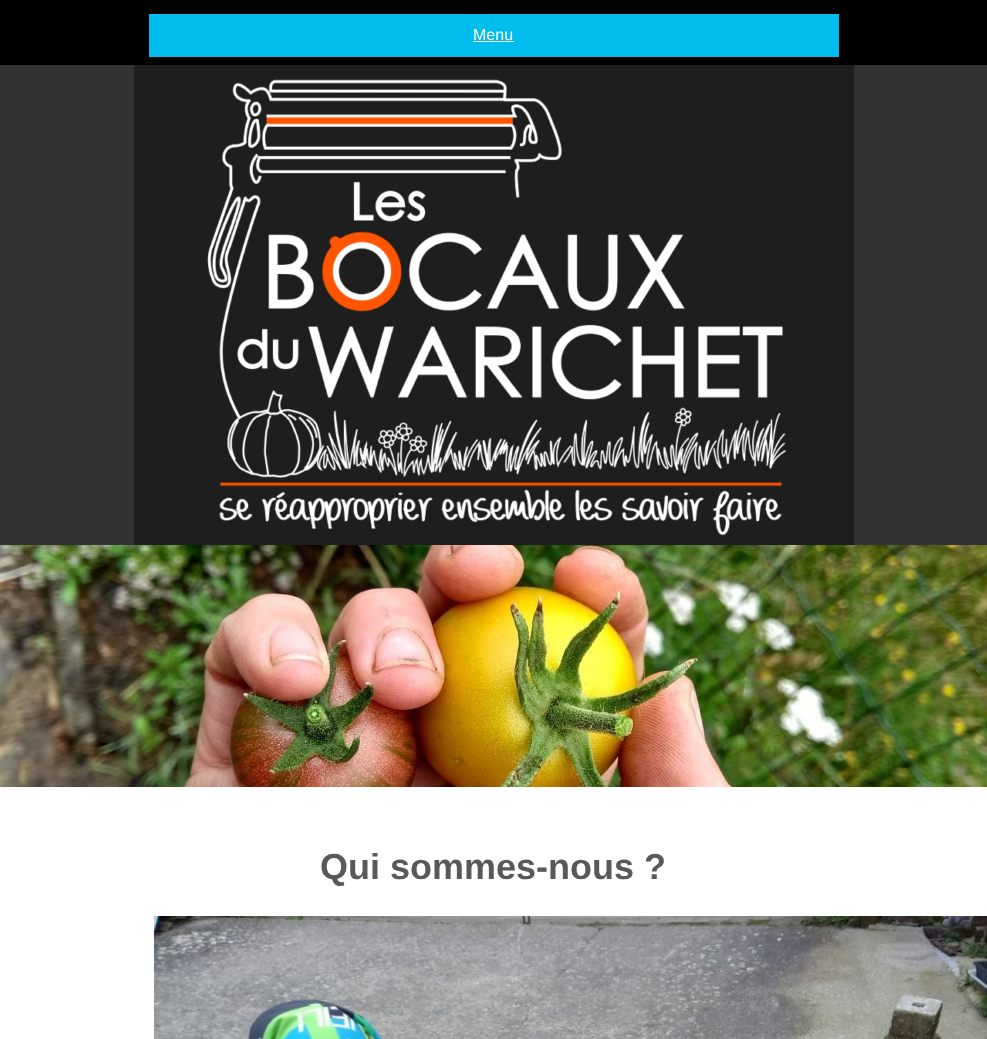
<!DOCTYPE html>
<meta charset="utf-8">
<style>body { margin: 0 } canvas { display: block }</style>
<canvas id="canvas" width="987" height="1039"></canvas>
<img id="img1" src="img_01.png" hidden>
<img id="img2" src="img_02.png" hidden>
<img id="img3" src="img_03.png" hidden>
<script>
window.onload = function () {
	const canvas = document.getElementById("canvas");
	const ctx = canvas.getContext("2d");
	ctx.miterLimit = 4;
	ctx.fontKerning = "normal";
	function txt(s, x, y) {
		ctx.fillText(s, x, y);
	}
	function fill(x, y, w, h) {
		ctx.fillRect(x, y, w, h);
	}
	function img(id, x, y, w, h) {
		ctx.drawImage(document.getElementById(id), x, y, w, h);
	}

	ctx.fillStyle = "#FFFFFF";
	fill(0, 0, 987, 1039);
	ctx.fillStyle = "#000000";
	fill(0, 0, 987, 65);
	ctx.fillStyle = "#00BDED";
	fill(149, 14, 690, 43);
	ctx.fillStyle = "#FFFFFF";
	fill(473, 41, 41, 1);
	ctx.fillStyle = "#333333";
	fill(0, 65, 987, 480);
	img("img1", 134, 65, 720, 480);
	img("img2", 0, 545, 987, 242);
	img("img3", 154, 916, 833, 123);
	ctx.font = "16px Liberation Sans";
	ctx.fillStyle = "#FFFFFF";
	txt("Menu", 473, 40);
	ctx.font = "bold 36px Liberation Sans";
	ctx.fillStyle = "#595959";
	txt("Qui sommes-nous ?", 320, 879);
};
</script>
